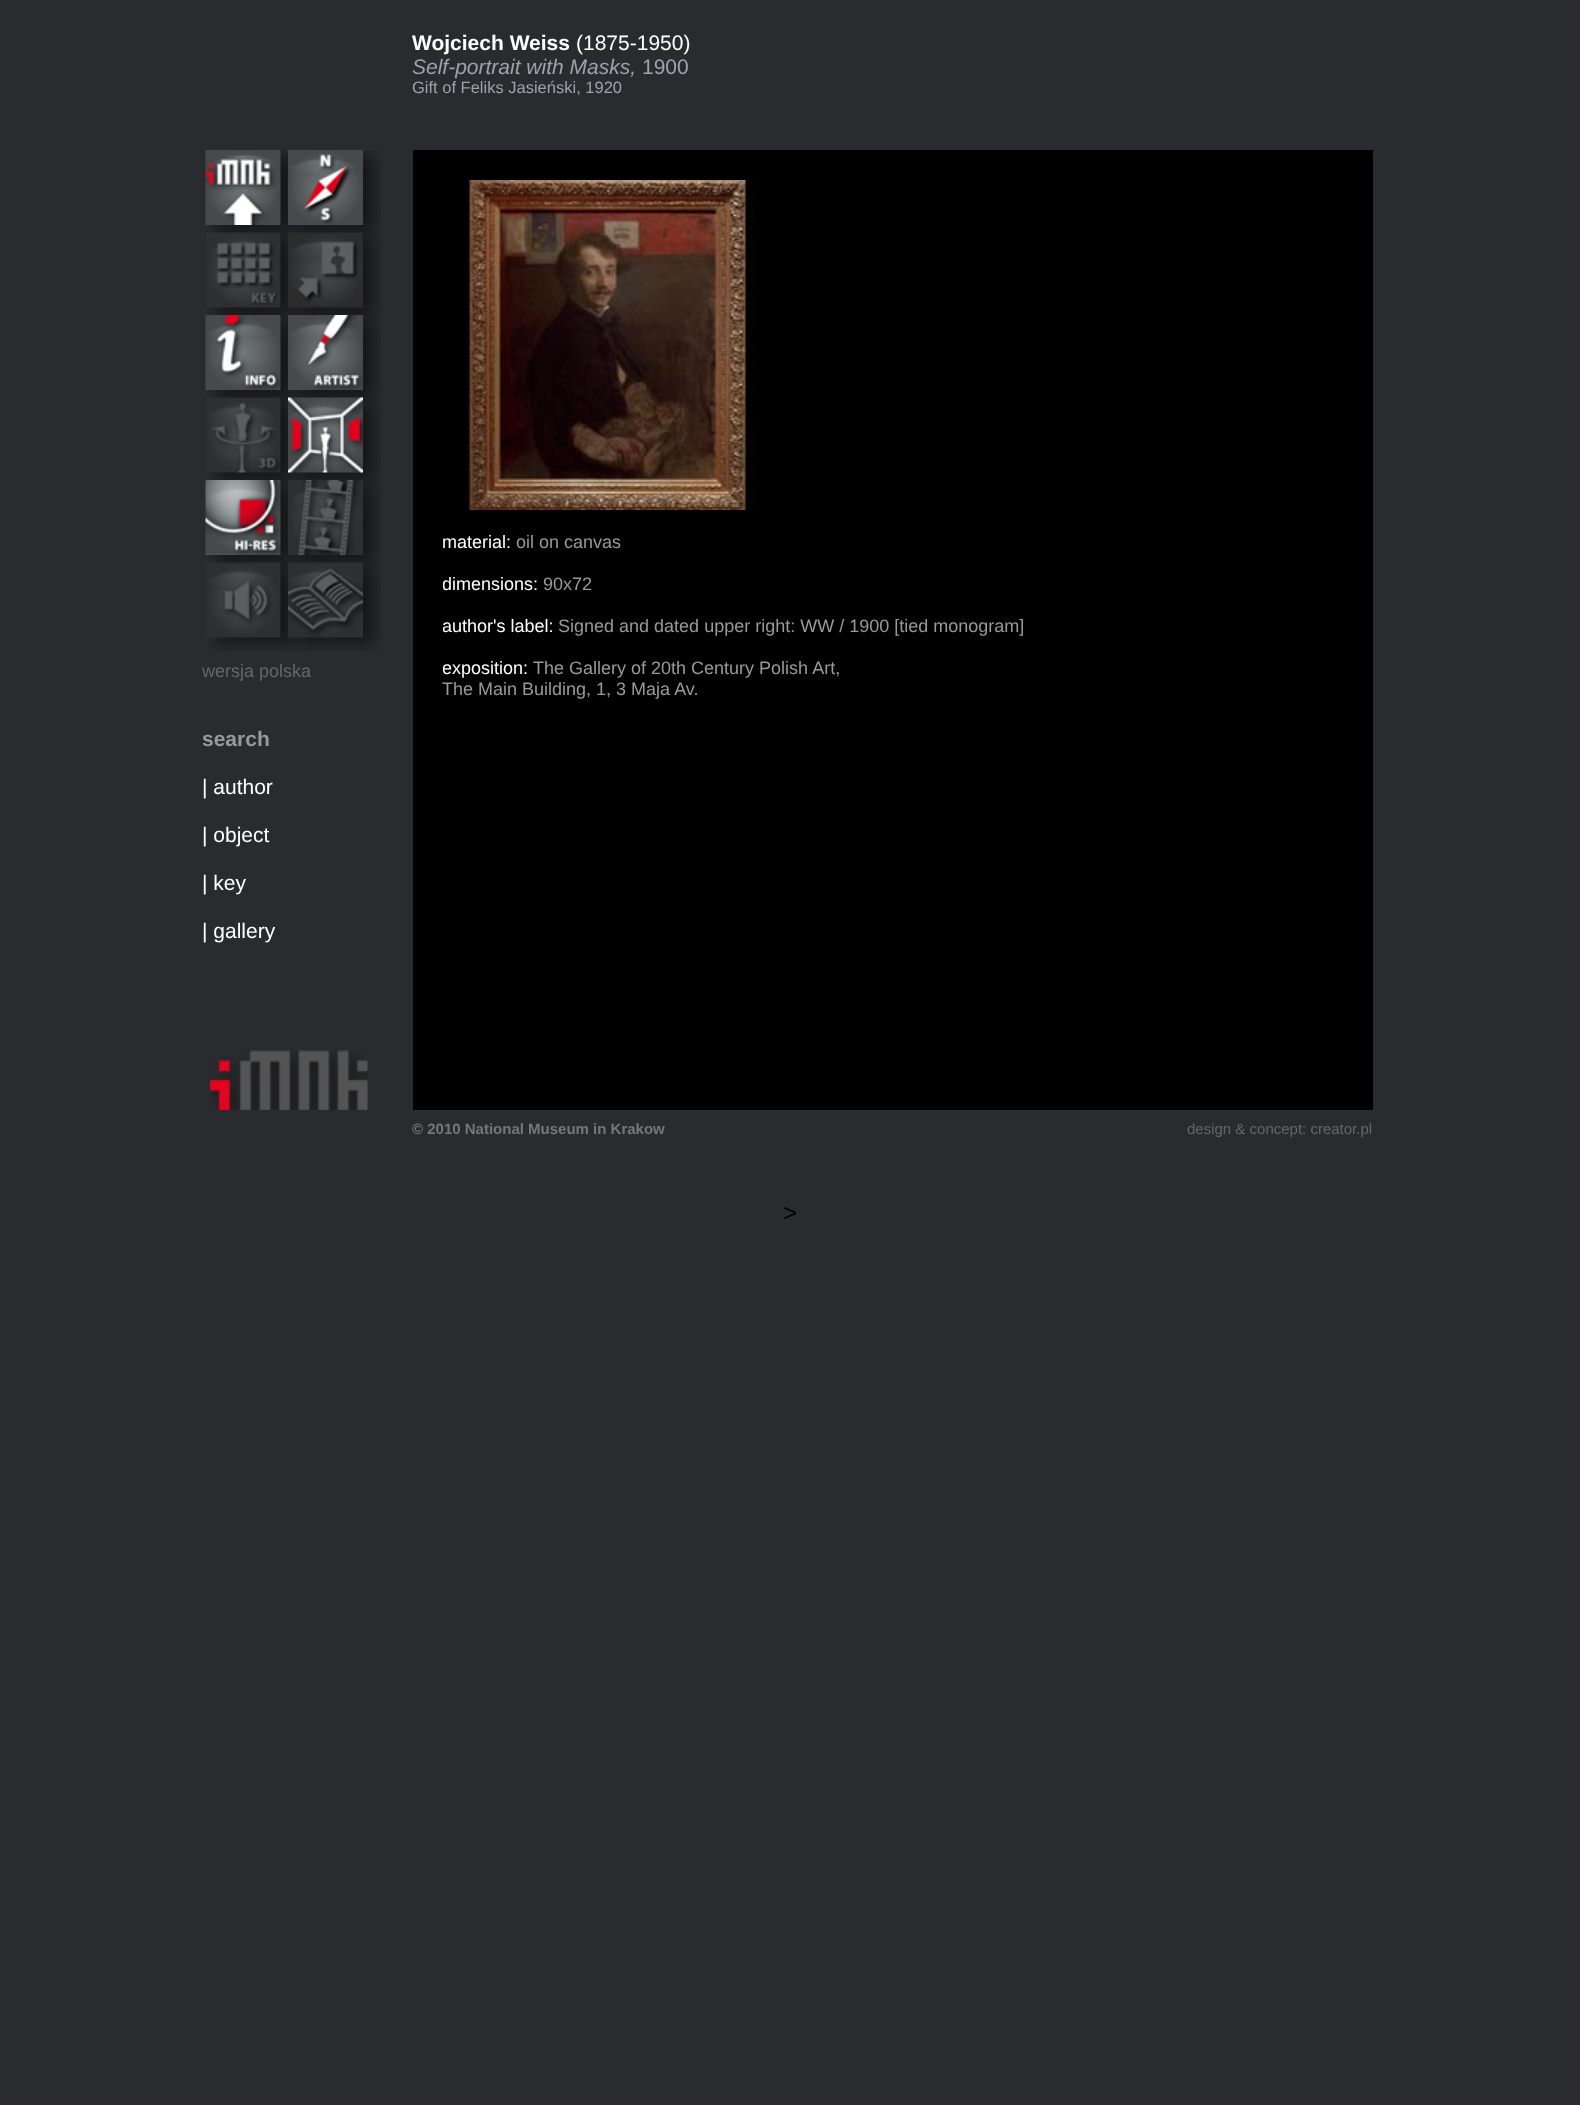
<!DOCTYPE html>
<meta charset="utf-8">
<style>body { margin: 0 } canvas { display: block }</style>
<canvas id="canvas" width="1580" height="2105"></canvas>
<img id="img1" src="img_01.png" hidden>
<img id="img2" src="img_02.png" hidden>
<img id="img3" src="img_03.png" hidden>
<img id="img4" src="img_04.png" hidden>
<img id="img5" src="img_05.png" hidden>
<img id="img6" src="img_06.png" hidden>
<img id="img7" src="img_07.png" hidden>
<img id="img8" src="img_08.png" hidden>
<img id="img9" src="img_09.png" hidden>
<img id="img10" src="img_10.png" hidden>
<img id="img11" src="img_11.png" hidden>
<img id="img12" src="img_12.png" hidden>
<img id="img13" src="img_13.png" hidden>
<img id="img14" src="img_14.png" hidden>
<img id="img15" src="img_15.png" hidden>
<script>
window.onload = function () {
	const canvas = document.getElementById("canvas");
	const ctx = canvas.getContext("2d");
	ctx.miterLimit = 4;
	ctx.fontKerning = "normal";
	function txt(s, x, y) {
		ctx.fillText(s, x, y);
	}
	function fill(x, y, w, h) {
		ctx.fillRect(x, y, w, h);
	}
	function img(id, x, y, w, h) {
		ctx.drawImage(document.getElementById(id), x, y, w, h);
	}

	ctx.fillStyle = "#2A2B2E";
	fill(0, 0, 1580, 2105);
	ctx.fillStyle = "#000000";
	fill(413, 150, 960, 960);
	img("img1", 467, 180, 287, 330);
	img("img2", 209, 150, 172, 501);
	img("img3", 205, 150, 76, 75);
	img("img4", 288, 150, 75, 75);
	img("img5", 206, 232, 75, 76);
	img("img6", 288, 232, 75, 76);
	img("img7", 205, 315, 76, 75);
	img("img8", 288, 315, 75, 75);
	img("img9", 206, 397, 75, 76);
	img("img10", 288, 397, 75, 76);
	img("img11", 205, 480, 76, 75);
	img("img12", 288, 480, 75, 75);
	img("img13", 206, 562, 75, 76);
	img("img14", 288, 562, 75, 76);
	img("img15", 210, 1050, 158, 60);
	ctx.font = "bold 21px Liberation Sans";
	ctx.fillStyle = "#FFFFFF";
	txt("Wojciech Weiss", 412, 50);
	ctx.font = "21px Liberation Sans";
	txt("(1875-1950)", 576, 50);
	ctx.font = "italic 21px Liberation Sans";
	ctx.fillStyle = "#99A4AB";
	txt("Self-portrait with Masks,", 412, 74);
	ctx.font = "21px Liberation Sans";
	txt("1900", 642, 74);
	ctx.font = "16.5px Liberation Sans";
	txt("Gift of Feliks Jasieński, 1920", 412, 93);
	ctx.font = "18px Liberation Sans";
	ctx.fillStyle = "#FFFFFF";
	txt("material:", 442, 548);
	ctx.fillStyle = "#999999";
	txt("oil on canvas", 516, 548);
	ctx.save();
	ctx.beginPath();
	ctx.rect(443, 531, 900, 540);
	ctx.clip();
	ctx.fillStyle = "#FFFFFF";
	txt("dimensions:", 442, 590);
	ctx.restore();
	txt("90x72", 543, 590);
	ctx.save();
	ctx.beginPath();
	ctx.rect(443, 531, 900, 540);
	ctx.clip();
	ctx.fillStyle = "#FFFFFF";
	txt("author's label:", 442, 632);
	ctx.restore();
	txt("Signed and dated upper right: WW / 1900 [tied monogram]", 558, 632);
	ctx.save();
	ctx.beginPath();
	ctx.rect(443, 531, 900, 540);
	ctx.clip();
	ctx.fillStyle = "#FFFFFF";
	txt("exposition:", 442, 674);
	ctx.restore();
	txt("The Gallery of 20th Century Polish Art,", 533, 674);
	txt("The Main Building, 1, 3 Maja Av.", 442, 695);
	ctx.fillStyle = "#666666";
	txt("wersja polska", 202, 677);
	ctx.font = "bold 21px Liberation Sans";
	ctx.fillStyle = "#999999";
	txt("search", 202, 746);
	ctx.font = "21px Liberation Sans";
	ctx.fillStyle = "#FFFFFF";
	txt("| author", 202, 794);
	txt("| object", 202, 842);
	txt("| key", 202, 890);
	txt("| gallery", 202, 938);
	ctx.font = "bold 15px Liberation Sans";
	ctx.fillStyle = "#777777";
	txt("© 2010 National Museum in Krakow", 412, 1134);
	ctx.font = "15px Liberation Sans";
	ctx.fillStyle = "#666666";
	txt("design & concept: creator.pl", 1187, 1134);
	ctx.font = "24px Liberation Sans";
	ctx.fillStyle = "#000000";
	txt(">", 783, 1221);
};
</script>
